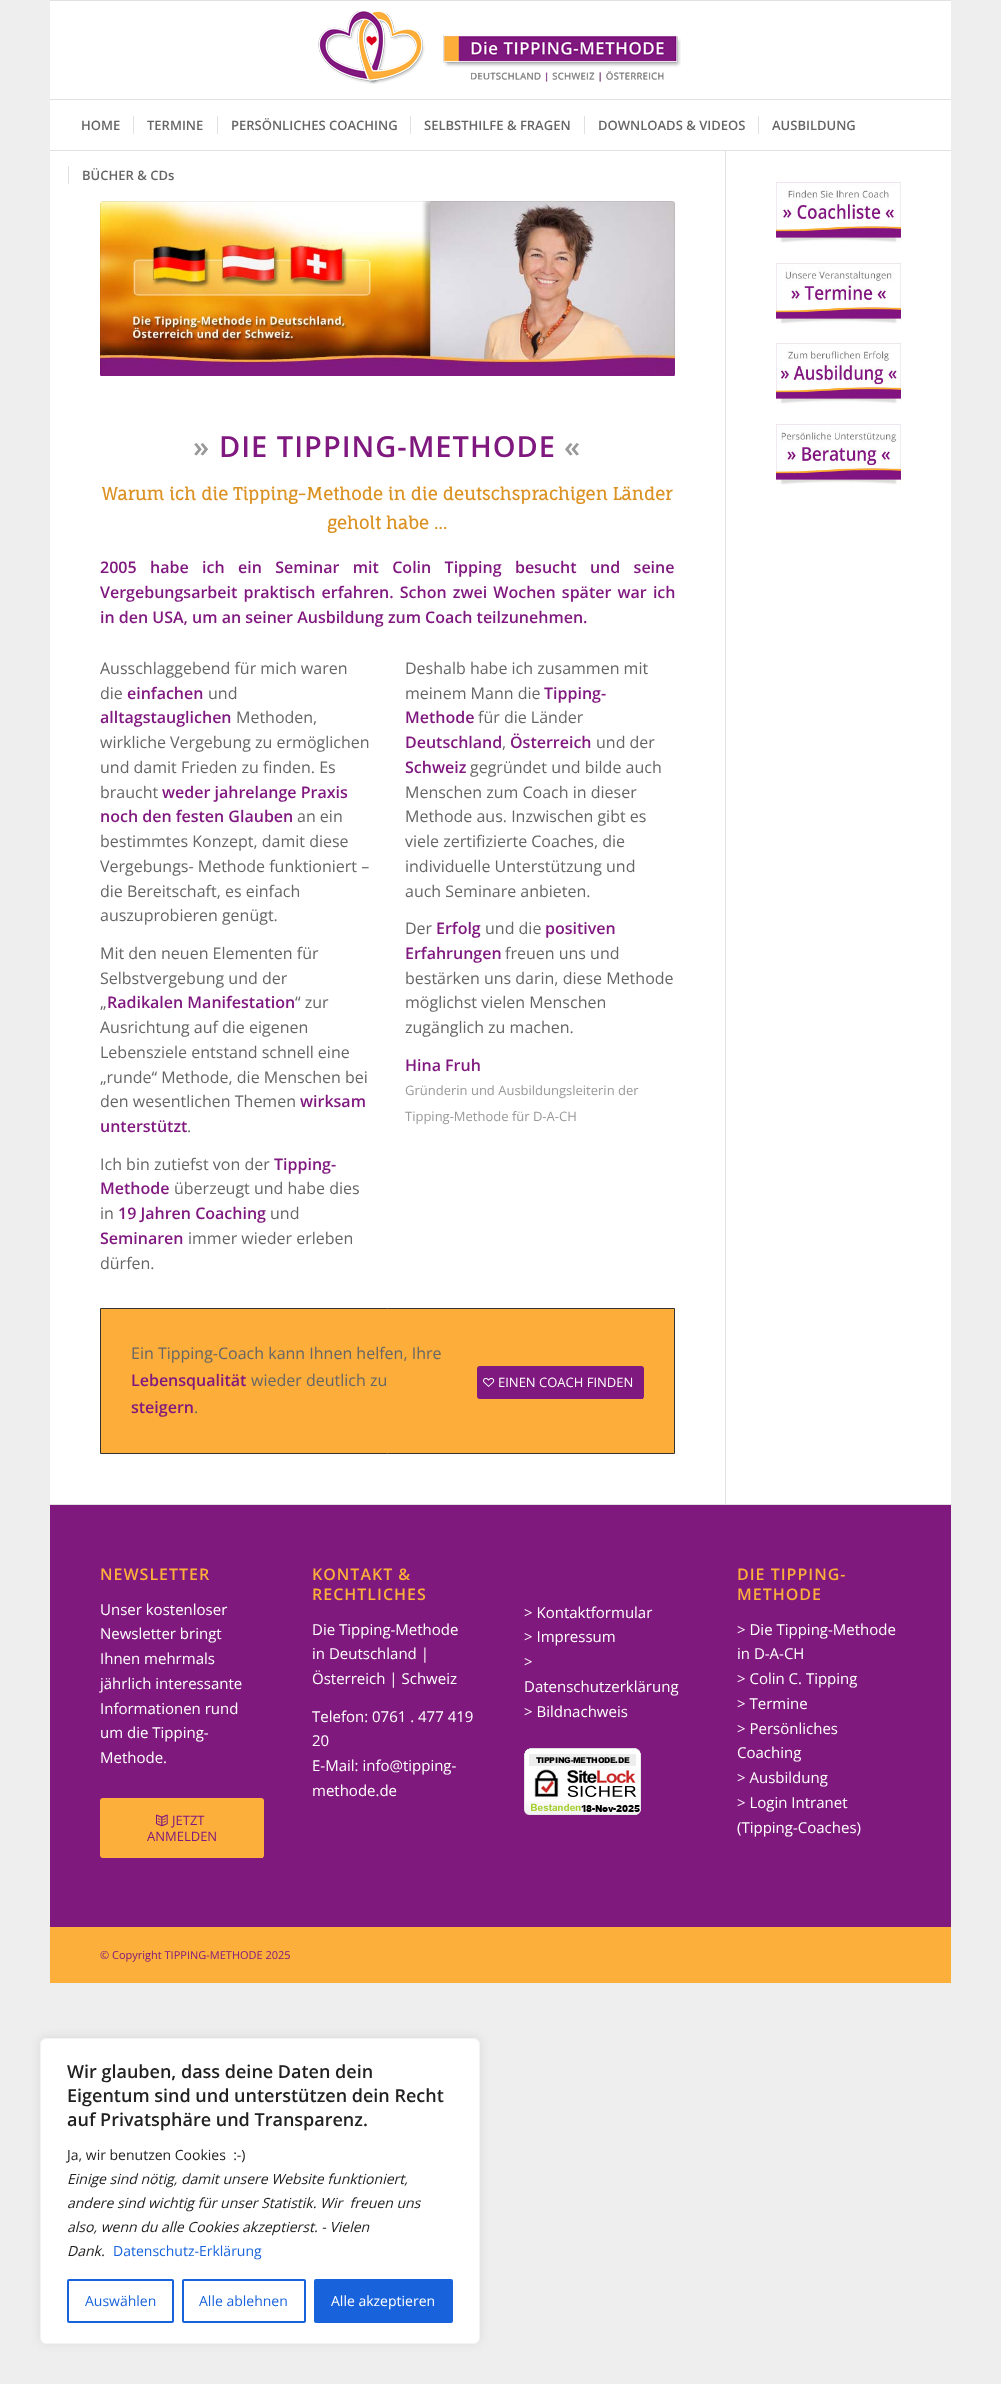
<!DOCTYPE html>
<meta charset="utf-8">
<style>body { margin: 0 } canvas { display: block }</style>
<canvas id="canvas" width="1001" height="2384"></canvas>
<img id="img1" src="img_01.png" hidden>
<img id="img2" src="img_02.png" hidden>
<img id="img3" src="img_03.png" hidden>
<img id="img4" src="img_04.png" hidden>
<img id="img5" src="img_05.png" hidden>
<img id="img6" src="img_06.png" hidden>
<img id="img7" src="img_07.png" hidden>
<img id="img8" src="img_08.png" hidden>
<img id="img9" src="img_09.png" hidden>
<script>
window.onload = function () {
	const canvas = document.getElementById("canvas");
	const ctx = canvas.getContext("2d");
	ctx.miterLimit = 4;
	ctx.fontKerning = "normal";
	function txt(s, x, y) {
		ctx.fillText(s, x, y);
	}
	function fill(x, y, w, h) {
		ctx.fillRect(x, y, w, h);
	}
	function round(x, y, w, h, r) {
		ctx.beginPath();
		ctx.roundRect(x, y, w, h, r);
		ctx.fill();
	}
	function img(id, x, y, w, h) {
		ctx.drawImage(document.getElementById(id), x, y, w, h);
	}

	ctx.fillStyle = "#EEEEEE";
	fill(0, 0, 1001, 2384);
	ctx.fillStyle = "#E1E1E1";
	fill(50, 0, 901, 1);
	fill(50, 150, 901, 1);
	ctx.fillStyle = "#FFFFFF";
	fill(50, 1, 901, 149);
	img("img1", 318, 11, 363, 73);
	ctx.fillStyle = "#E1E1E1";
	fill(50, 99, 901, 1);
	fill(133, 116, 1, 18);
	fill(217, 116, 1, 18);
	fill(410, 116, 1, 18);
	fill(584, 116, 1, 18);
	fill(758, 116, 1, 18);
	ctx.fillStyle = "#FFFFFF";
	fill(50, 151, 901, 1353);
	ctx.fillStyle = "#E1E1E1";
	fill(68, 166, 1, 18);
	img("img2", 776, 182, 125, 61);
	img("img3", 776, 263, 125, 61);
	img("img4", 776, 343, 125, 61);
	img("img5", 776, 424, 125, 61);
	fill(725, 151, 1, 1353);
	img("img6", 100, 201, 575, 175);
	ctx.fillStyle = "#FCAD3A";
	ctx.beginPath();
	ctx.rect(100.5, 1308.5, 574, 145);
	ctx.fill();
	ctx.strokeStyle = "#333333";
	ctx.stroke();
	ctx.fillStyle = "#80197F";
	round(477, 1366, 167, 33, 3);
	fill(479, 1398, 164, 1);
	img("img7", 483, 1377, 12, 10);
	ctx.fillStyle = "#80197E";
	fill(50, 1505, 901, 422);
	ctx.fillStyle = "#E1E1E1";
	fill(50, 1504, 901, 1);
	ctx.fillStyle = "#FCAF3A";
	round(100, 1798, 164, 60, 3);
	fill(102, 1857, 161, 1);
	img("img8", 156, 1814, 12, 13);
	img("img9", 524, 1748, 117, 67);
	fill(50, 1927, 901, 56);
	ctx.fillStyle = "rgba(172, 171, 171, 0.3)";
	ctx.filter = "blur(5px)";
	ctx.beginPath();
	ctx.roundRect(40, 2037, 440, 306, 6);
	ctx.fill();
	ctx.filter = "none";
	ctx.fillStyle = "#FFFFFF";
	ctx.beginPath();
	ctx.roundRect(40.5, 2038.5, 439, 305, 5.5);
	ctx.fill();
	ctx.strokeStyle = "#F4F4F4";
	ctx.stroke();
	ctx.beginPath();
	ctx.roundRect(68, 2280, 105, 42, 1);
	ctx.strokeStyle = "#1863DC";
	ctx.lineWidth = 2;
	ctx.stroke();
	ctx.beginPath();
	ctx.roundRect(183, 2280, 122, 42, 1);
	ctx.stroke();
	ctx.fillStyle = "#1863DC";
	ctx.beginPath();
	ctx.roundRect(315, 2280, 137, 42, 1);
	ctx.fill();
	ctx.stroke();
	ctx.font = "600 13px Open Sans";
	ctx.fillStyle = "#666666";
	txt("HOME", 81, 130);
	txt("TERMINE", 147, 130);
	txt("PERSÖNLICHES COACHING", 231, 130);
	txt("SELBSTHILFE & FRAGEN", 424, 130);
	txt("DOWNLOADS & VIDEOS", 598, 130);
	txt("AUSBILDUNG", 772, 130);
	txt("BÜCHER & CDs", 82, 180);
	ctx.letterSpacing = "1px";
	ctx.font = "600 29px Open Sans";
	ctx.fillStyle = "#999999";
	txt("»", 193, 457);
	ctx.fillStyle = "#80197F";
	txt("DIE TIPPING-METHODE", 219, 457);
	ctx.fillStyle = "#999999";
	txt("«", 564, 457);
	ctx.letterSpacing = "0px";
	ctx.font = "bold 17px Fauna One";
	ctx.fillStyle = "#DB9223";
	txt("Warum ich die Tipping-Methode in die deutschsprachigen Länder", 102, 500);
	txt("geholt habe …", 327, 529);
	ctx.wordSpacing = "9.25px";
	ctx.font = "600 16px Open Sans";
	ctx.fillStyle = "#80197F";
	txt("2005 habe ich ein Seminar mit Colin Tipping besucht und seine", 100, 573);
	ctx.wordSpacing = "2px";
	txt("Vergebungsarbeit praktisch erfahren. Schon zwei Wochen später war ich", 100, 598);
	ctx.wordSpacing = "0px";
	txt("in den USA, um an seiner Ausbildung zum Coach teilzunehmen.", 100, 623);
	ctx.font = "16px Open Sans";
	ctx.fillStyle = "#666666";
	txt("Ausschlaggebend für mich waren", 100, 674);
	txt("die", 100, 699);
	ctx.font = "600 16px Open Sans";
	ctx.fillStyle = "#80197F";
	txt("einfachen", 127, 699);
	ctx.font = "16px Open Sans";
	ctx.fillStyle = "#666666";
	txt("und", 208, 699);
	ctx.font = "600 16px Open Sans";
	ctx.fillStyle = "#80197F";
	txt("alltagstauglichen", 100, 723);
	ctx.font = "16px Open Sans";
	ctx.fillStyle = "#666666";
	txt("Methoden,", 236, 723);
	txt("wirkliche Vergebung zu ermöglichen", 100, 748);
	txt("und damit Frieden zu finden. Es", 100, 773);
	txt("braucht", 100, 798);
	ctx.font = "600 16px Open Sans";
	ctx.fillStyle = "#80197F";
	txt("weder jahrelange Praxis", 162, 798);
	txt("noch den festen Glauben", 100, 822);
	ctx.font = "16px Open Sans";
	ctx.fillStyle = "#666666";
	txt("an ein", 297, 822);
	txt("bestimmtes Konzept, damit diese", 100, 847);
	txt("Vergebungs- Methode funktioniert –", 100, 872);
	txt("die Bereitschaft, es einfach", 100, 897);
	txt("auszuprobieren genügt.", 100, 921);
	txt("Mit den neuen Elementen für", 100, 959);
	txt("Selbstvergebung und der", 100, 984);
	txt("„", 100, 1008);
	ctx.font = "600 16px Open Sans";
	ctx.fillStyle = "#80197F";
	txt("Radikalen Manifestation", 107, 1008);
	ctx.font = "16px Open Sans";
	ctx.fillStyle = "#666666";
	txt("“ zur", 295, 1008);
	txt("Ausrichtung auf die eigenen", 100, 1033);
	txt("Lebensziele entstand schnell eine", 100, 1058);
	txt("„runde“ Methode, die Menschen bei", 100, 1083);
	txt("den wesentlichen Themen", 100, 1107);
	ctx.font = "600 16px Open Sans";
	ctx.fillStyle = "#80197F";
	txt("wirksam", 300, 1107);
	txt("unterstützt", 100, 1132);
	ctx.font = "16px Open Sans";
	ctx.fillStyle = "#666666";
	txt(".", 187, 1132);
	txt("Ich bin zutiefst von der", 100, 1170);
	ctx.font = "600 16px Open Sans";
	ctx.fillStyle = "#80197F";
	txt("Tipping-", 274, 1170);
	txt("Methode", 100, 1194);
	ctx.font = "16px Open Sans";
	ctx.fillStyle = "#666666";
	txt("überzeugt und habe dies", 174, 1194);
	txt("in", 100, 1219);
	ctx.font = "600 16px Open Sans";
	ctx.fillStyle = "#80197F";
	txt("19 Jahren Coaching", 118, 1219);
	ctx.font = "16px Open Sans";
	ctx.fillStyle = "#666666";
	txt("und", 270, 1219);
	ctx.font = "600 16px Open Sans";
	ctx.fillStyle = "#80197F";
	txt("Seminaren", 100, 1244);
	ctx.font = "16px Open Sans";
	ctx.fillStyle = "#666666";
	txt("immer wieder erleben", 188, 1244);
	txt("dürfen.", 100, 1269);
	txt("Deshalb habe ich zusammen mit", 405, 674);
	txt("meinem Mann die", 405, 699);
	ctx.font = "600 16px Open Sans";
	ctx.fillStyle = "#80197F";
	txt("Tipping-", 544, 699);
	txt("Methode", 405, 723);
	ctx.font = "16px Open Sans";
	ctx.fillStyle = "#666666";
	txt("für die Länder", 478, 723);
	ctx.font = "600 16px Open Sans";
	ctx.fillStyle = "#80197F";
	txt("Deutschland", 405, 748);
	ctx.font = "16px Open Sans";
	ctx.fillStyle = "#666666";
	txt(",", 502, 748);
	ctx.font = "600 16px Open Sans";
	ctx.fillStyle = "#80197F";
	txt("Österreich", 510, 748);
	ctx.font = "16px Open Sans";
	ctx.fillStyle = "#666666";
	txt("und der", 596, 748);
	ctx.font = "600 16px Open Sans";
	ctx.fillStyle = "#80197F";
	txt("Schweiz", 405, 773);
	ctx.font = "16px Open Sans";
	ctx.fillStyle = "#666666";
	txt("gegründet und bilde auch", 470, 773);
	txt("Menschen zum Coach in dieser", 405, 798);
	txt("Methode aus. Inzwischen gibt es", 405, 822);
	txt("viele zertifizierte Coaches, die", 405, 847);
	txt("individuelle Unterstützung und", 405, 872);
	txt("auch Seminare anbieten.", 405, 897);
	txt("Der", 405, 934);
	ctx.font = "600 16px Open Sans";
	ctx.fillStyle = "#80197F";
	txt("Erfolg", 436, 934);
	ctx.font = "16px Open Sans";
	ctx.fillStyle = "#666666";
	txt("und die", 485, 934);
	ctx.font = "600 16px Open Sans";
	ctx.fillStyle = "#80197F";
	txt("positiven", 545, 934);
	txt("Erfahrungen", 405, 959);
	ctx.font = "16px Open Sans";
	ctx.fillStyle = "#666666";
	txt("freuen uns und", 505, 959);
	txt("bestärken uns darin, diese Methode", 405, 984);
	txt("möglichst vielen Menschen", 405, 1008);
	txt("zugänglich zu machen.", 405, 1033);
	ctx.font = "600 16px Open Sans";
	ctx.fillStyle = "#80197F";
	txt("Hina Fruh", 405, 1071);
	ctx.font = "13px Open Sans";
	ctx.fillStyle = "#999999";
	txt("Gründerin und Ausbildungsleiterin der", 405, 1095);
	txt("Tipping-Methode für D-A-CH", 405, 1121);
	ctx.font = "16px Open Sans";
	ctx.fillStyle = "#666666";
	txt("Ein Tipping-Coach kann Ihnen helfen, Ihre", 131, 1359);
	ctx.font = "600 16px Open Sans";
	ctx.fillStyle = "#80197F";
	txt("Lebensqualität", 131, 1386);
	ctx.font = "16px Open Sans";
	ctx.fillStyle = "#666666";
	txt("wieder deutlich zu", 251, 1386);
	ctx.font = "600 16px Open Sans";
	ctx.fillStyle = "#80197F";
	txt("steigern", 131, 1413);
	ctx.font = "16px Open Sans";
	ctx.fillStyle = "#666666";
	txt(".", 194, 1413);
	ctx.font = "13px Open Sans";
	ctx.fillStyle = "#FFFFFF";
	txt("EINEN COACH FINDEN", 498, 1387);
	ctx.letterSpacing = "1px";
	ctx.font = "600 16px Open Sans";
	ctx.fillStyle = "#FCAF3A";
	txt("NEWSLETTER", 100, 1580);
	ctx.letterSpacing = "0px";
	ctx.font = "15px Open Sans";
	ctx.fillStyle = "#FFFFFF";
	txt("Unser kostenloser", 100, 1615);
	txt("Newsletter bringt", 100, 1639);
	txt("Ihnen mehrmals", 100, 1664);
	txt("jährlich interessante", 100, 1689);
	txt("Informationen rund", 100, 1714);
	txt("um die Tipping-", 100, 1738);
	txt("Methode.", 100, 1763);
	ctx.font = "13px Open Sans";
	ctx.fillStyle = "#80197F";
	txt("JETZT", 172, 1825);
	txt("ANMELDEN", 147, 1841);
	ctx.letterSpacing = "1px";
	ctx.font = "600 16px Open Sans";
	ctx.fillStyle = "#FCAF3A";
	txt("KONTAKT &", 312, 1580);
	txt("RECHTLICHES", 312, 1600);
	ctx.letterSpacing = "0px";
	ctx.font = "15px Open Sans";
	ctx.fillStyle = "#FFFFFF";
	txt("Die Tipping-Methode", 312, 1635);
	txt("in Deutschland |", 312, 1659);
	txt("Österreich | Schweiz", 312, 1684);
	txt("Telefon: 0761 . 477 419", 312, 1722);
	txt("20", 312, 1746);
	txt("E-Mail: info@tipping-", 312, 1771);
	txt("methode.de", 312, 1796);
	txt("> Kontaktformular", 524, 1618);
	txt("> Impressum", 524, 1642);
	txt(">", 524, 1667);
	txt("Datenschutzerklärung", 524, 1692);
	txt("> Bildnachweis", 524, 1717);
	ctx.letterSpacing = "1px";
	ctx.font = "600 16px Open Sans";
	ctx.fillStyle = "#FCAF3A";
	txt("DIE TIPPING-", 737, 1580);
	txt("METHODE", 737, 1600);
	ctx.letterSpacing = "0px";
	ctx.font = "15px Open Sans";
	ctx.fillStyle = "#FFFFFF";
	txt("> Die Tipping-Methode", 737, 1635);
	txt("in D-A-CH", 737, 1659);
	txt("> Colin C. Tipping", 737, 1684);
	txt("> Termine", 737, 1709);
	txt("> Persönliches", 737, 1734);
	txt("Coaching", 737, 1758);
	txt("> Ausbildung", 737, 1783);
	txt("> Login Intranet", 737, 1808);
	txt("(Tipping-Coaches)", 737, 1833);
	ctx.font = "11px Open Sans";
	ctx.fillStyle = "#80197F";
	txt("© Copyright TIPPING-METHODE 2025", 100, 1959);
	ctx.font = "600 18px Open Sans";
	ctx.fillStyle = "#212121";
	txt("Wir glauben, dass deine Daten dein", 67, 2078);
	txt("Eigentum sind und unterstützen dein Recht", 67, 2102);
	txt("auf Privatsphäre und Transparenz.", 67, 2126);
	ctx.font = "14px Open Sans";
	txt("Ja, wir benutzen Cookies  :-)", 67, 2160);
	ctx.font = "italic 14px Open Sans";
	txt("Einige sind nötig, damit unsere Website funktioniert,", 67, 2184);
	txt("andere sind wichtig für unser Statistik. Wir  freuen uns", 67, 2208);
	txt("also, wenn du alle Cookies akzeptierst. - Vielen", 67, 2232);
	txt("Dank.", 67, 2256);
	ctx.font = "14px Open Sans";
	ctx.fillStyle = "#1863DC";
	txt("Datenschutz-Erklärung", 113, 2256);
	txt("Auswählen", 85, 2306);
	txt("Alle ablehnen", 199, 2306);
	ctx.fillStyle = "#FFFFFF";
	txt("Alle akzeptieren", 331, 2306);
};
</script>
